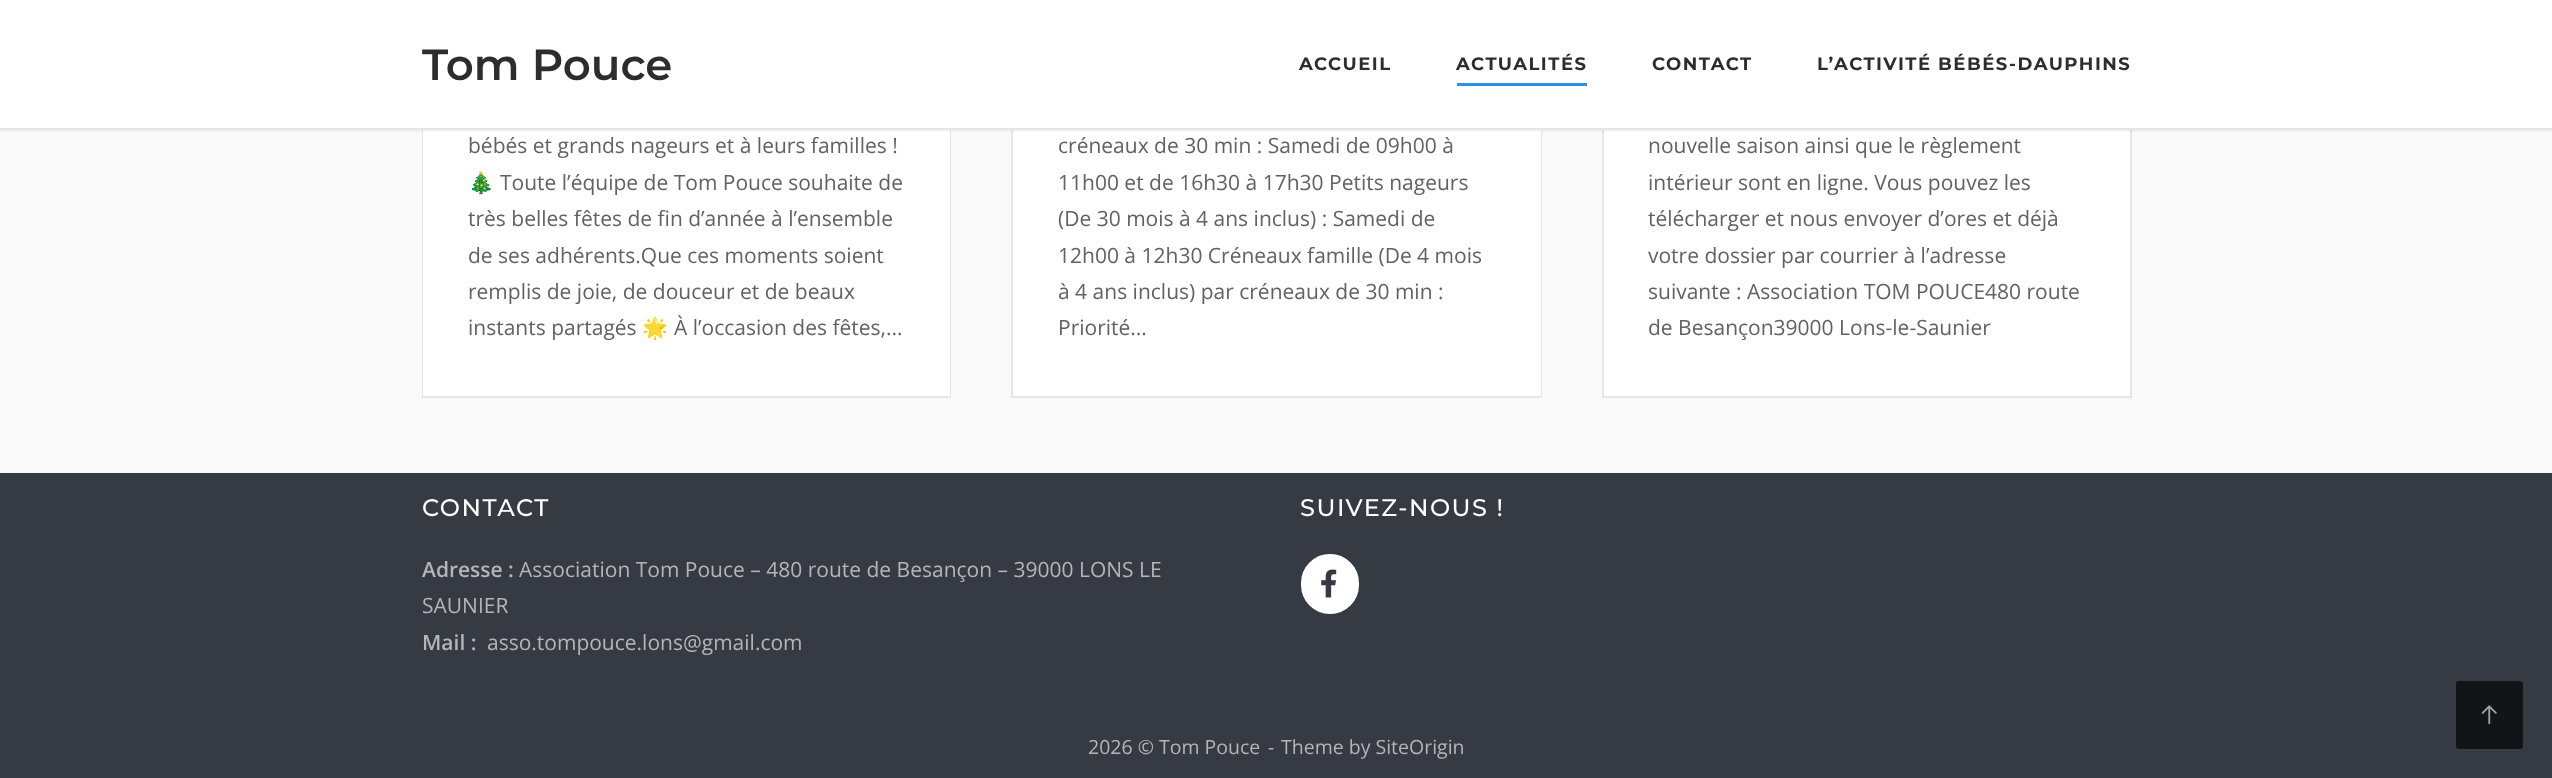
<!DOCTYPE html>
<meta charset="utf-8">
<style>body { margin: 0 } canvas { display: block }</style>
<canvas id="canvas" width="2552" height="778"></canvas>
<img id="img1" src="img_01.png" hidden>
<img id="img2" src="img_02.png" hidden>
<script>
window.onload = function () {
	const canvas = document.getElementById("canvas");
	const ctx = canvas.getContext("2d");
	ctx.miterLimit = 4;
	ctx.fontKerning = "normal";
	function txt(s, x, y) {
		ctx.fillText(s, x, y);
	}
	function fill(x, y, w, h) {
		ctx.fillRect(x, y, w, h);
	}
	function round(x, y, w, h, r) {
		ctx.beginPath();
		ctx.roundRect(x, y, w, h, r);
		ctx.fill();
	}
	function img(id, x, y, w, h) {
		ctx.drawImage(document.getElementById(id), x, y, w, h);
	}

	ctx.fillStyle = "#F9F9F9";
	fill(0, 0, 2552, 778);
	ctx.strokeStyle = "#E6E6E6";
	ctx.lineWidth = 2;
	ctx.strokeRect(423, -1, 527, 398);
	ctx.fillStyle = "#FFFFFF";
	fill(423, 130, 527, 266);
	ctx.strokeRect(1012, -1, 529, 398);
	fill(1013, 130, 528, 266);
	fill(1604, 130, 526, 266);
	ctx.strokeRect(1603, -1, 528, 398);
	ctx.fillStyle = "rgba(0, 0, 0, 0.07)";
	ctx.filter = "blur(1px)";
	ctx.beginPath();
	ctx.rect(0, 2, 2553, 129);
	ctx.fill();
	ctx.filter = "none";
	ctx.fillStyle = "#FFFFFF";
	fill(0, 0, 2552, 128);
	ctx.fillStyle = "#E6E6E6";
	fill(0, 128, 2552, 2);
	ctx.fillStyle = "#2B93E2";
	fill(1457, 83, 130, 3);
	ctx.fillStyle = "#363A43";
	fill(0, 473, 2552, 305);
	ctx.fillStyle = "#FFFFFF";
	ctx.beginPath();
	ctx.roundRect(1302, 555, 56, 58, 28);
	ctx.fill();
	ctx.strokeStyle = "#FFFFFF";
	ctx.stroke();
	img("img1", 1321, 569, 16, 29);
	ctx.fillStyle = "#131417";
	round(2456, 681, 67, 68, 3);
	img("img2", 2481, 705, 16, 20);
	ctx.font = "600 43.5px Montserrat";
	ctx.fillStyle = "#2D2D2D";
	txt("Tom Pouce", 422, 80);
	ctx.letterSpacing = "1.5px";
	ctx.font = "bold 18px Montserrat";
	txt("ACCUEIL", 1299, 70);
	txt("ACTUALITÉS", 1456, 70);
	txt("CONTACT", 1652, 70);
	txt("L’ACTIVITÉ BÉBÉS-DAUPHINS", 1817, 70);
	ctx.letterSpacing = "0px";
	ctx.font = "21px Open Sans";
	ctx.fillStyle = "#626262";
	txt("bébés et grands nageurs et à leurs familles !", 468, 153);
	ctx.font = "21px Noto Color Emoji";
	txt("🎄", 468, 190);
	ctx.font = "21px Open Sans";
	txt("Toute l’équipe de Tom Pouce souhaite de", 500, 190);
	txt("très belles fêtes de fin d’année à l’ensemble", 468, 226);
	txt("de ses adhérents.Que ces moments soient", 468, 263);
	txt("remplis de joie, de douceur et de beaux", 468, 299);
	txt("instants partagés", 468, 335);
	ctx.font = "21px Noto Color Emoji";
	txt("🌟", 642, 335);
	ctx.font = "21px Open Sans";
	txt("À l’occasion des fêtes,...", 674, 335);
	txt("créneaux de 30 min : Samedi de 09h00 à", 1058, 153);
	txt("11h00 et de 16h30 à 17h30 Petits nageurs", 1058, 190);
	txt("(De 30 mois à 4 ans inclus) : Samedi de", 1058, 226);
	txt("12h00 à 12h30 Créneaux famille (De 4 mois", 1058, 263);
	txt("à 4 ans inclus) par créneaux de 30 min :", 1058, 299);
	txt("Priorité...", 1058, 335);
	txt("nouvelle saison ainsi que le règlement", 1648, 153);
	txt("intérieur sont en ligne. Vous pouvez les", 1648, 190);
	txt("télécharger et nous envoyer d’ores et déjà", 1648, 226);
	txt("votre dossier par courrier à l’adresse", 1648, 263);
	txt("suivante : Association TOM POUCE480 route", 1648, 299);
	txt("de Besançon39000 Lons-le-Saunier", 1648, 335);
	ctx.letterSpacing = "1.5px";
	ctx.font = "500 24px Montserrat";
	ctx.fillStyle = "#FFFFFF";
	txt("CONTACT", 422, 516);
	ctx.letterSpacing = "0px";
	ctx.font = "600 21px Open Sans";
	ctx.fillStyle = "#B4B5B8";
	txt("Adresse :", 422, 577);
	ctx.font = "21px Open Sans";
	txt("Association Tom Pouce – 480 route de Besançon – 39000 LONS LE", 519, 577);
	txt("SAUNIER", 422, 613);
	ctx.font = "600 21px Open Sans";
	txt("Mail :", 422, 650);
	ctx.font = "21px Open Sans";
	txt("asso.tompouce.lons@gmail.com", 487, 650);
	ctx.letterSpacing = "1.5px";
	ctx.font = "500 24px Montserrat";
	ctx.fillStyle = "#FFFFFF";
	txt("SUIVEZ-NOUS !", 1300, 516);
	ctx.letterSpacing = "0px";
	ctx.font = "19.5px Open Sans";
	ctx.fillStyle = "#B4B5B8";
	txt("2026 © Tom Pouce", 1088, 754);
	txt("-", 1268, 754);
	txt("Theme by SiteOrigin", 1281, 754);
};
</script>
